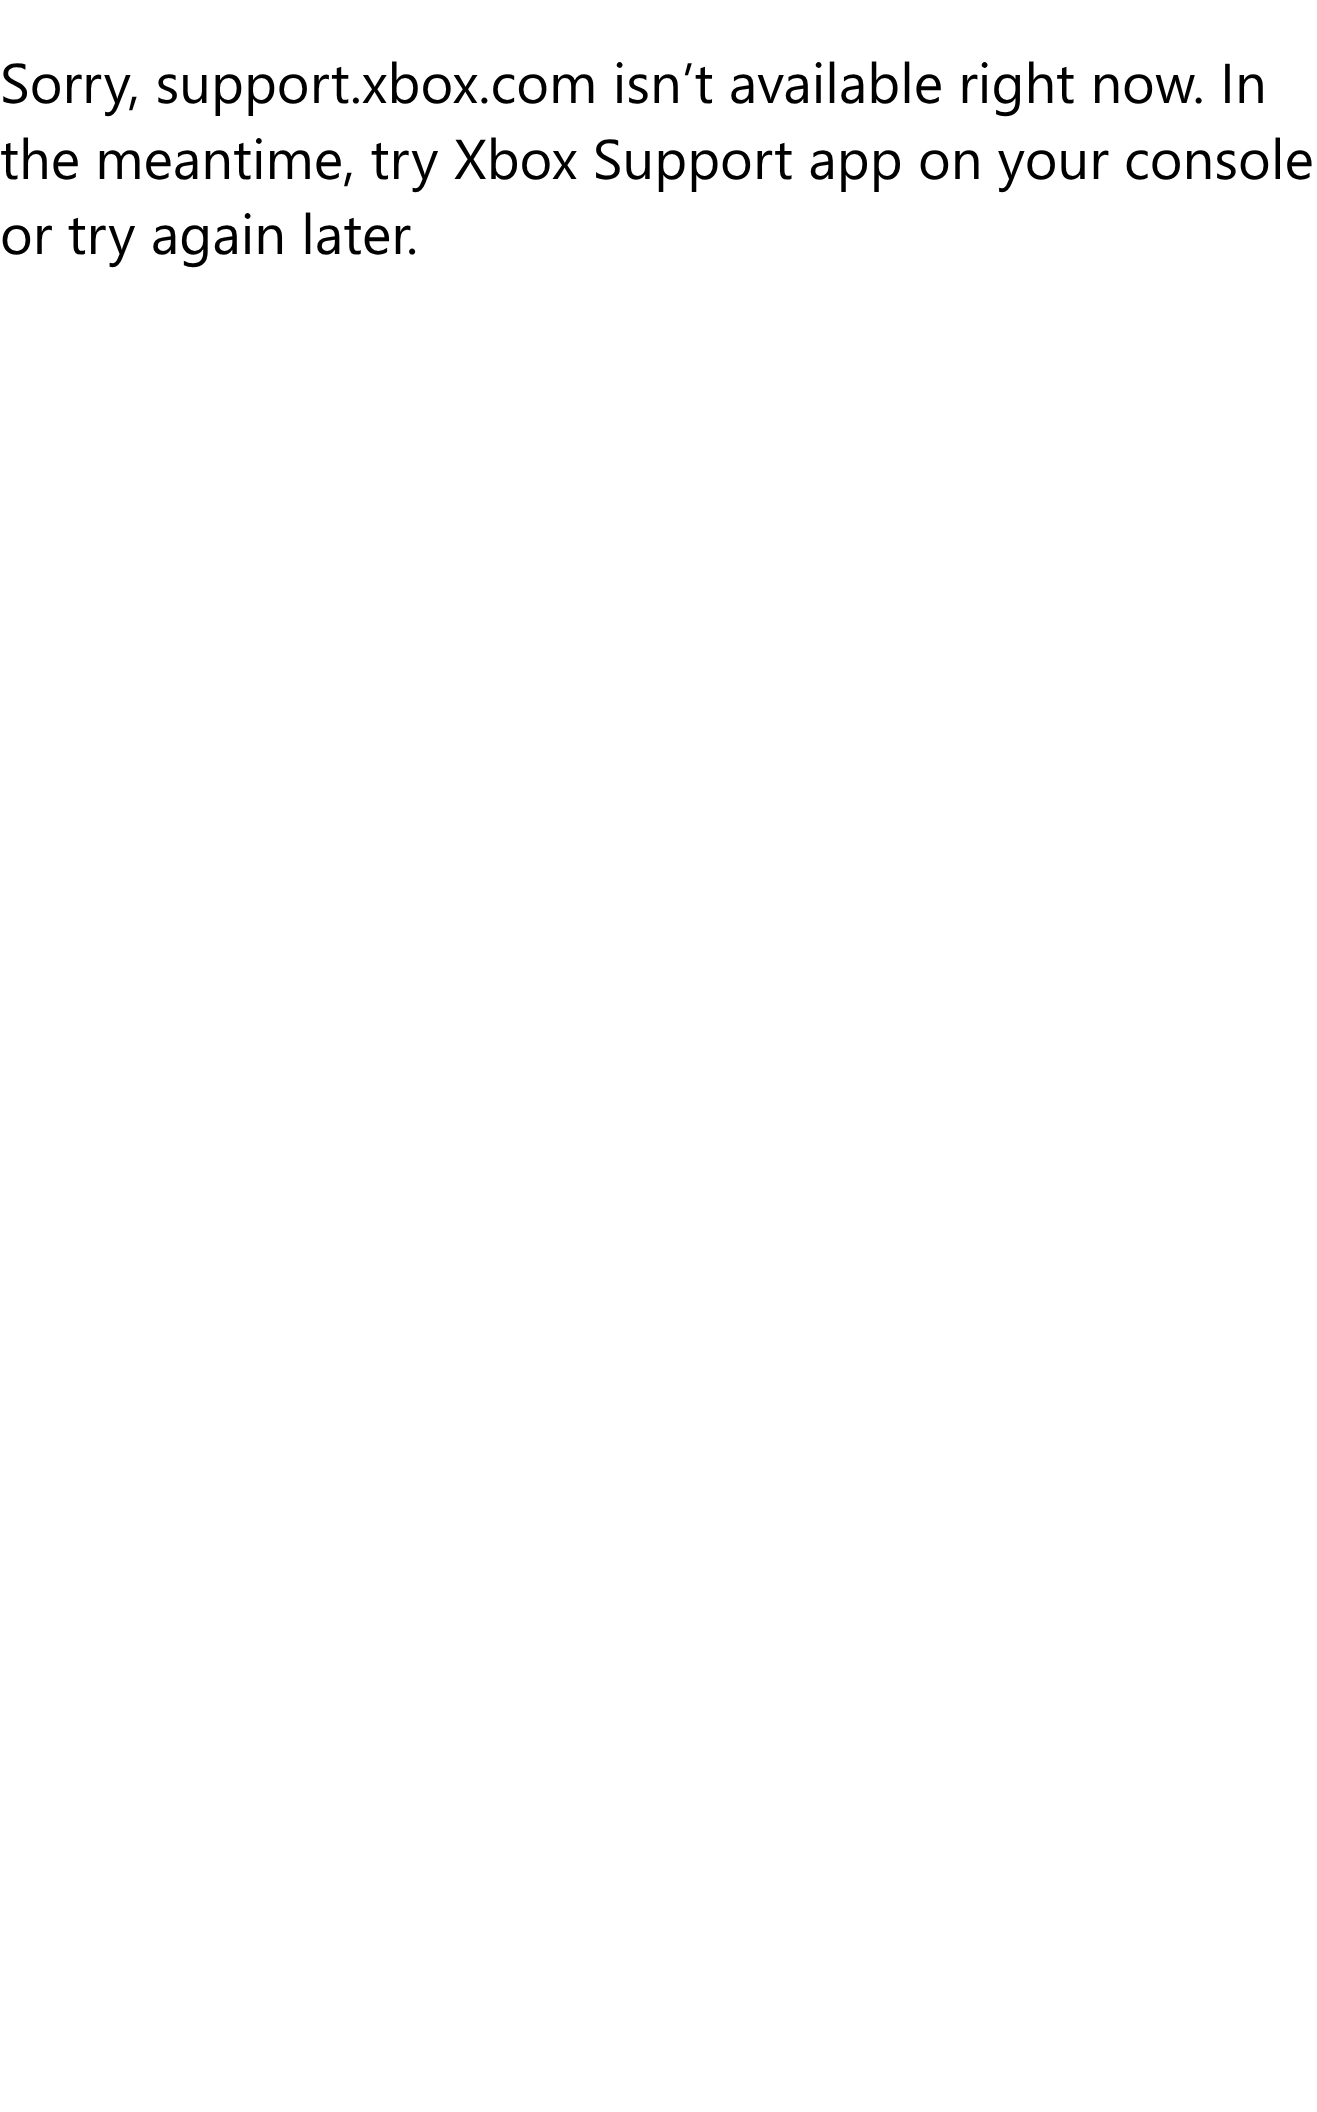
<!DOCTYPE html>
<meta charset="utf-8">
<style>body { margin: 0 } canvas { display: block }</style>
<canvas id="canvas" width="1317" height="2112"></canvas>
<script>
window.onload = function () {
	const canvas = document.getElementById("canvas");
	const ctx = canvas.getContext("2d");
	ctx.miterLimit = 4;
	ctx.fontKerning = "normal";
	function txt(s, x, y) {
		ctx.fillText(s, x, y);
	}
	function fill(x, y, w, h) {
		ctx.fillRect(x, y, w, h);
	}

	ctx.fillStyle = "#FFFFFF";
	fill(0, 0, 1317, 2112);
	ctx.font = "56px Segoe UI";
	ctx.fillStyle = "#000000";
	txt("Sorry, support.xbox.com isn’t available right now. In", 0, 103);
	txt("the meantime, try Xbox Support app on your console", 0, 179);
	txt("or try again later.", 0, 254);
};
</script>
